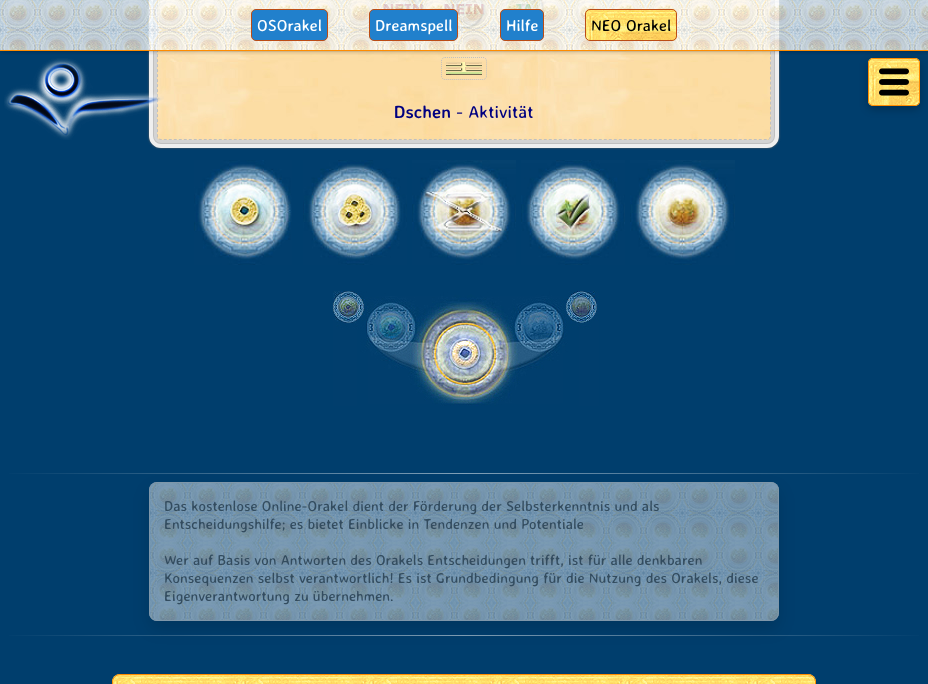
<!DOCTYPE html>
<meta charset="utf-8">
<style>body { margin: 0 } canvas { display: block }</style>
<canvas id="canvas" width="928" height="684"></canvas>
<img id="img1" src="img_06.png" hidden>
<img id="img2" src="img_05.png" hidden>
<img id="img3" src="img_07.png" hidden>
<img id="img4" src="img_08.png" hidden>
<img id="img5" src="img_09.png" hidden>
<img id="img6" src="img_01.png" hidden>
<img id="img7" src="img_02.png" hidden>
<img id="img8" src="img_03.png" hidden>
<img id="img9" src="img_04.png" hidden>
<img id="img10" src="img_10.png" hidden>
<img id="img11" src="img_11.png" hidden>
<img id="img12" src="img_12.png" hidden>
<img id="img13" src="img_13.png" hidden>
<img id="img14" src="img_14.png" hidden>
<img id="img15" src="img_15.png" hidden>
<img id="img16" src="img_16.png" hidden>
<img id="img17" src="img_17.png" hidden>
<img id="img18" src="img_18.png" hidden>
<script>
window.onload = function () {
	const canvas = document.getElementById("canvas");
	const ctx = canvas.getContext("2d");
	ctx.miterLimit = 4;
	ctx.fontKerning = "normal";
	function txt(s, x, y) {
		ctx.fillText(s, x, y);
	}
	function fill(x, y, w, h) {
		ctx.fillRect(x, y, w, h);
	}
	function img(id, x, y, w, h) {
		ctx.drawImage(document.getElementById(id), x, y, w, h);
	}
	let gradient;

	ctx.fillStyle = "#003E6D";
	fill(0, 0, 928, 684);
	ctx.fillStyle = "#666666";
	ctx.filter = "blur(1px)";
	ctx.beginPath();
	ctx.roundRect(149, -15, 630, 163, 12);
	ctx.fill();
	ctx.filter = "none";
	ctx.beginPath();
	ctx.roundRect(153, -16, 622, 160, 8);
	ctx.strokeStyle = "#EFEFEF";
	ctx.lineWidth = 8;
	ctx.stroke();
	ctx.beginPath();
	ctx.roundRect(155, -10, 618, 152, 6);
	ctx.strokeStyle = "#C0C0C0";
	ctx.lineWidth = 4;
	ctx.stroke();
	ctx.beginPath();
	ctx.roundRect(155.5, -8.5, 617, 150, 5.5);
	ctx.strokeStyle = "#D3D3D3";
	ctx.lineWidth = 3;
	ctx.stroke();
	img("img1", 157, 0, 614, 140);
	ctx.beginPath();
	ctx.moveTo(161, -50.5);
	ctx.lineTo(767, -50.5);
	ctx.bezierCurveTo(769, -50.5, 770.5, -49, 770.5, -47);
	ctx.lineTo(770.5, 136);
	ctx.bezierCurveTo(770.5, 138, 769, 139.5, 767, 139.5);
	ctx.lineTo(161, 139.5);
	ctx.bezierCurveTo(159, 139.5, 157.5, 138, 157.5, 136);
	ctx.lineTo(157.5, -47);
	ctx.bezierCurveTo(157.5, -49, 159, -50.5, 161, -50.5);
	ctx.closePath();
	ctx.strokeStyle = "#C0C0C0";
	ctx.lineWidth = 1;
	ctx.setLineDash([3, 2]);
	ctx.stroke();
	img("img2", 4, 58, 160, 82);
	img("img3", 379, 0, 48, 9);
	img("img4", 440, 0, 48, 30);
	img("img5", 504, 0, 41, 15);
	ctx.beginPath();
	ctx.moveTo(445, 57.5);
	ctx.lineTo(483, 57.5);
	ctx.bezierCurveTo(485, 57.5, 486.5, 59, 486.5, 61);
	ctx.lineTo(486.5, 76);
	ctx.bezierCurveTo(486.5, 78, 485, 79.5, 483, 79.5);
	ctx.lineTo(445, 79.5);
	ctx.bezierCurveTo(443, 79.5, 441.5, 78, 441.5, 76);
	ctx.lineTo(441.5, 61);
	ctx.bezierCurveTo(441.5, 59, 443, 57.5, 445, 57.5);
	ctx.closePath();
	ctx.setLineDash([1, 1]);
	ctx.stroke();
	ctx.save();
	ctx.beginPath();
	ctx.rect(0, 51, 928, 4);
	ctx.clip();
	ctx.fillStyle = "rgba(0, 0, 0, 0.2)";
	ctx.filter = "blur(2px)";
	ctx.beginPath();
	ctx.rect(0, 1, 928, 51);
	ctx.fill();
	ctx.filter = "none";
	ctx.restore();
	ctx.save();
	ctx.beginPath();
	ctx.rect(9, 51, 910, 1);
	ctx.clip();
	ctx.fillStyle = "rgba(0, 0, 0, 0.5)";
	ctx.filter = "blur(2px)";
	ctx.beginPath();
	ctx.rect(10, 18, 908, 31);
	ctx.fill();
	ctx.filter = "none";
	ctx.restore();
	img("img6", 0, 0, 928, 50);
	ctx.fillStyle = "#FF8C00";
	fill(0, 50, 928, 1);
	ctx.fillStyle = "#2180CC";
	ctx.beginPath();
	ctx.roundRect(251.5, 9.5, 76, 31, 4.5);
	ctx.fill();
	ctx.strokeStyle = "#BC4D16";
	ctx.setLineDash([]);
	ctx.stroke();
	ctx.beginPath();
	ctx.roundRect(369.5, 9.5, 88, 31, 4.5);
	ctx.fill();
	ctx.stroke();
	ctx.beginPath();
	ctx.roundRect(500.5, 9.5, 43, 31, 4.5);
	ctx.fill();
	ctx.stroke();
	img("img7", 585, 9, 92, 32);
	ctx.beginPath();
	ctx.roundRect(585.5, 9.5, 91, 31, 4.5);
	ctx.stroke();
	ctx.fillStyle = "rgba(0, 0, 0, 0.25)";
	ctx.filter = "blur(4px)";
	ctx.beginPath();
	ctx.roundRect(868, 61, 52, 48, 5);
	ctx.fill();
	ctx.filter = "none";
	img("img8", 868, 58, 52, 48);
	ctx.beginPath();
	ctx.roundRect(868.5, 58.5, 51, 47, 4.5);
	ctx.strokeStyle = "#FF8C00";
	ctx.stroke();
	img("img9", 879, 68, 30, 28);
	img("img10", 446, 62, 36, 13);
	img("img11", 194, 160, 98, 105);
	img("img12", 303, 160, 104, 105);
	img("img13", 412, 160, 104, 105);
	img("img14", 521, 160, 104, 105);
	img("img15", 630, 160, 105, 105);
	img("img16", 333, 291, 266, 115);
	gradient = ctx.createLinearGradient(0, 474, 928, 474);
	gradient.addColorStop(0, "#003E6D");
	gradient.addColorStop(0.5, "#809FB6");
	gradient.addColorStop(1, "#003E6D");
	ctx.fillStyle = gradient;
	fill(9, 473, 910, 1);
	gradient = ctx.createLinearGradient(0, 636, 928, 636);
	gradient.addColorStop(0, "#003E6D");
	gradient.addColorStop(0.5, "#809FB6");
	gradient.addColorStop(1, "#003E6D");
	ctx.fillStyle = gradient;
	fill(9, 635, 910, 1);
	ctx.save();
	ctx.beginPath();
	ctx.moveTo(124, 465);
	ctx.lineTo(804, 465);
	ctx.lineTo(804, 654);
	ctx.lineTo(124, 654);
	ctx.closePath();
	ctx.moveTo(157, 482);
	ctx.lineTo(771, 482);
	ctx.bezierCurveTo(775.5, 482, 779, 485.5, 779, 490);
	ctx.lineTo(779, 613);
	ctx.bezierCurveTo(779, 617.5, 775.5, 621, 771, 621);
	ctx.lineTo(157, 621);
	ctx.bezierCurveTo(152.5, 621, 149, 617.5, 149, 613);
	ctx.lineTo(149, 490);
	ctx.bezierCurveTo(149, 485.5, 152.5, 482, 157, 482);
	ctx.closePath();
	ctx.clip("evenodd");
	ctx.fillStyle = "rgba(0, 0, 0, 0.12)";
	ctx.filter = "blur(8px)";
	ctx.beginPath();
	ctx.roundRect(149, 490, 630, 139, 8);
	ctx.fill();
	ctx.filter = "none";
	ctx.restore();
	img("img17", 149, 482, 630, 139);
	ctx.beginPath();
	ctx.roundRect(149.5, 482.5, 629, 138, 7.5);
	ctx.strokeStyle = "#7F97AA";
	ctx.stroke();
	img("img18", 112, 674, 704, 10);
	ctx.beginPath();
	ctx.roundRect(112.5, 674.5, 703, 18, 7.5);
	ctx.strokeStyle = "#FF8C00";
	ctx.stroke();
	ctx.font = "16px Averia Sans Libre";
	ctx.fillStyle = "#FFFFFF";
	txt("OSOrakel", 257, 31);
	txt("Dreamspell", 375, 31);
	txt("Hilfe", 506, 31);
	ctx.fillStyle = "#000000";
	txt("NEO Orakel", 591, 31);
	ctx.font = "bold 17.5px Averia Sans Libre";
	ctx.fillStyle = "#000080";
	txt("Dschen", 394, 118);
	ctx.font = "17.5px Averia Sans Libre";
	txt("- Aktivität", 456, 118);
	ctx.font = "14.4px Averia Sans Libre";
	ctx.fillStyle = "#334C5F";
	txt("Das kostenlose Online-Orakel dient der Förderung der Selbsterkenntnis und als", 164, 511);
	txt("Entscheidungshilfe; es bietet Einblicke in Tendenzen und Potentiale", 164, 529);
	txt("Wer auf Basis von Antworten des Orakels Entscheidungen trifft, ist für alle denkbaren", 164, 565);
	txt("Konsequenzen selbst verantwortlich! Es ist Grundbedingung für die Nutzung des Orakels, diese", 164, 583);
	txt("Eigenverantwortung zu übernehmen.", 164, 601);
};
</script>
